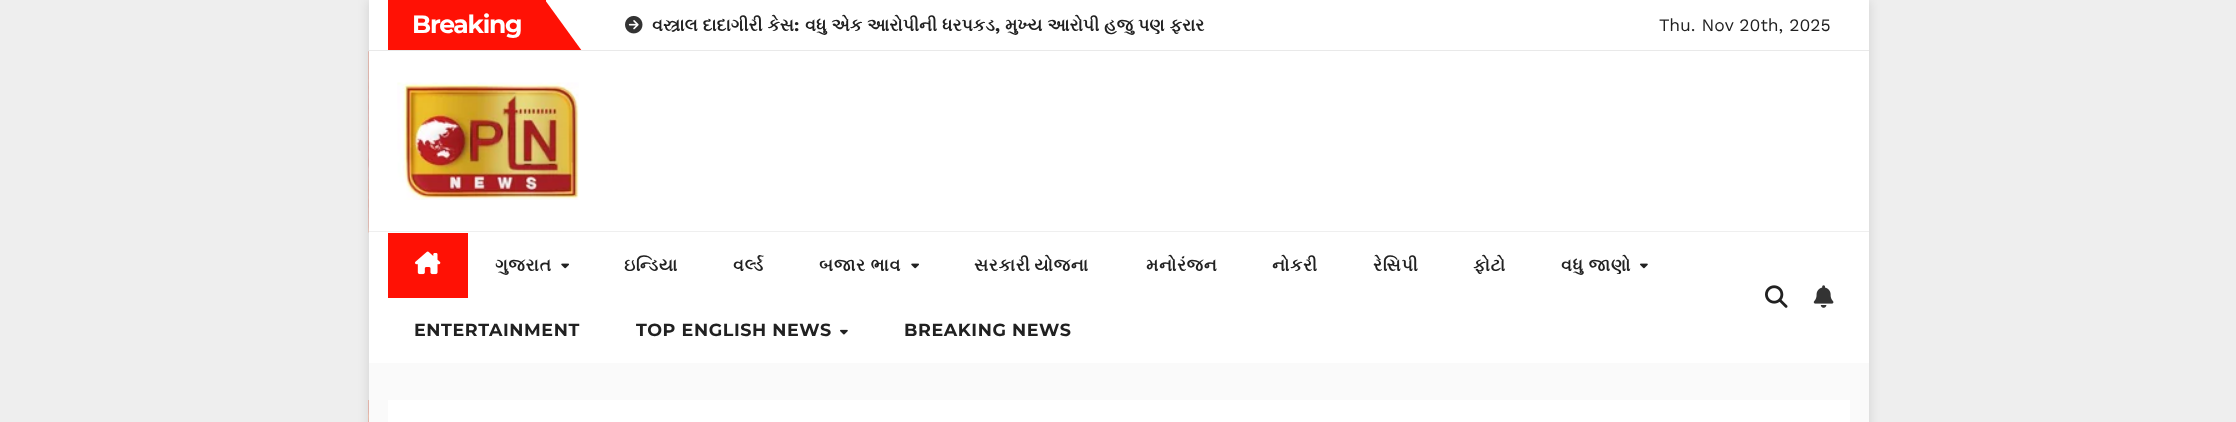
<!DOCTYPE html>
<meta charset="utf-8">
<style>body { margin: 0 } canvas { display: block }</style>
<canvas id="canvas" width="2236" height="422"></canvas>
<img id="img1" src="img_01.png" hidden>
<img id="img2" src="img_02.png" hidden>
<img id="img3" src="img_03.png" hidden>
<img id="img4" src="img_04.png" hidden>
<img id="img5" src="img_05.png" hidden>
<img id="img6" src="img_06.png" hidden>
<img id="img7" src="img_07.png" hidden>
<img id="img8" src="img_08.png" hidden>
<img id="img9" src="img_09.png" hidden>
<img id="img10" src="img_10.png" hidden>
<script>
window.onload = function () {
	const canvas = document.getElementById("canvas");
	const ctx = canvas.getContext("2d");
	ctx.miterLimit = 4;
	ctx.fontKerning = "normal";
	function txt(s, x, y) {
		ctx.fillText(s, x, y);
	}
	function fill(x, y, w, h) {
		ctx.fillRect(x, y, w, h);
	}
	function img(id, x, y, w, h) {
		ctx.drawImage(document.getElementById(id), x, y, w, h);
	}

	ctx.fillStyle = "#EEEEEE";
	fill(0, 0, 2236, 422);
	ctx.fillStyle = "rgba(0, 0, 0, 0.12)";
	ctx.filter = "blur(6px)";
	ctx.beginPath();
	ctx.rect(369, 0, 1500, 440);
	ctx.fill();
	ctx.filter = "none";
	ctx.fillStyle = "#FAFAFA";
	fill(369, 363, 1500, 59);
	ctx.fillStyle = "#FFFFFF";
	fill(369, 0, 1500, 50);
	ctx.fillStyle = "#E9E9E9";
	fill(369, 50, 1500, 1);
	ctx.fillStyle = "#FF1105";
	fill(388, 0, 158, 50);
	ctx.save();
	ctx.beginPath();
	ctx.rect(388, 0, 837, 50);
	ctx.clip();
	ctx.beginPath();
	ctx.moveTo(545, 51);
	ctx.lineTo(545, 0);
	ctx.lineTo(582, 51);
	ctx.closePath();
	ctx.fill();
	ctx.restore();
	img("img1", 625, 15, 18, 19);
	img("img2", 368, 51, 1, 182);
	ctx.fillStyle = "#FFFFFF";
	fill(369, 51, 1500, 312);
	ctx.fillStyle = "#EFEFEF";
	fill(369, 231, 1500, 1);
	img("img3", 397, 82, 182, 118);
	ctx.fillStyle = "#FF1105";
	fill(388, 233, 80, 65);
	img("img4", 415, 251, 26, 24);
	img("img5", 561, 263, 8, 6);
	img("img5", 911, 263, 8, 6);
	img("img6", 1640, 263, 8, 6);
	img("img7", 840, 329, 8, 6);
	img("img8", 1765, 285, 23, 23);
	img("img9", 1813, 285, 21, 23);
	img("img10", 368, 400, 1, 22);
	ctx.fillStyle = "#FFFFFF";
	fill(388, 400, 1462, 22);
	ctx.letterSpacing = "-1.25px";
	ctx.font = "bold 25px Montserrat";
	txt("Breaking", 412, 33);
	ctx.letterSpacing = "0px";
	ctx.wordSpacing = "0.5px";
	ctx.font = "bold 17.5px FreeSerif";
	ctx.fillStyle = "#212121";
	txt("વસ્ત્રાલ દાદાગીરી કેસ", 652, 31);
	ctx.wordSpacing = "0px";
	ctx.font = "bold 17.5px Work Sans";
	txt(":", 794, 31);
	ctx.wordSpacing = "0.5px";
	ctx.font = "bold 17.5px FreeSerif";
	txt("વધુ એક આરોપીની ધરપકડ", 805, 31);
	ctx.wordSpacing = "0px";
	ctx.font = "bold 17.5px Work Sans";
	txt(",", 995, 31);
	ctx.wordSpacing = "0.5px";
	ctx.font = "bold 17.5px FreeSerif";
	txt("મુખ્ય આરોપી હજુ પણ ફરાર", 1005, 31);
	ctx.wordSpacing = "0px";
	ctx.font = "17.5px Work Sans";
	txt("Thu. Nov 20th, 2025", 1659, 31);
	ctx.letterSpacing = "0.6px";
	ctx.font = "bold 17.5px FreeSerif";
	txt("ગુજરાત", 495, 271);
	txt("ઇન્ડિયા", 624, 271);
	txt("વર્લ્ડ", 733, 271);
	txt("બજાર ભાવ", 819, 271);
	ctx.wordSpacing = "-1px";
	txt("સરકારી યોજના", 974, 271);
	ctx.wordSpacing = "0px";
	txt("મનોરંજન", 1146, 271);
	txt("નોકરી", 1272, 271);
	txt("રેસિપી", 1373, 271);
	txt("ફોટો", 1473, 271);
	txt("વધુ જાણો", 1561, 271);
	ctx.font = "bold 17.5px Montserrat";
	txt("ENTERTAINMENT", 414, 336);
	txt("TOP ENGLISH NEWS", 636, 336);
	txt("BREAKING NEWS", 904, 336);
};
</script>
